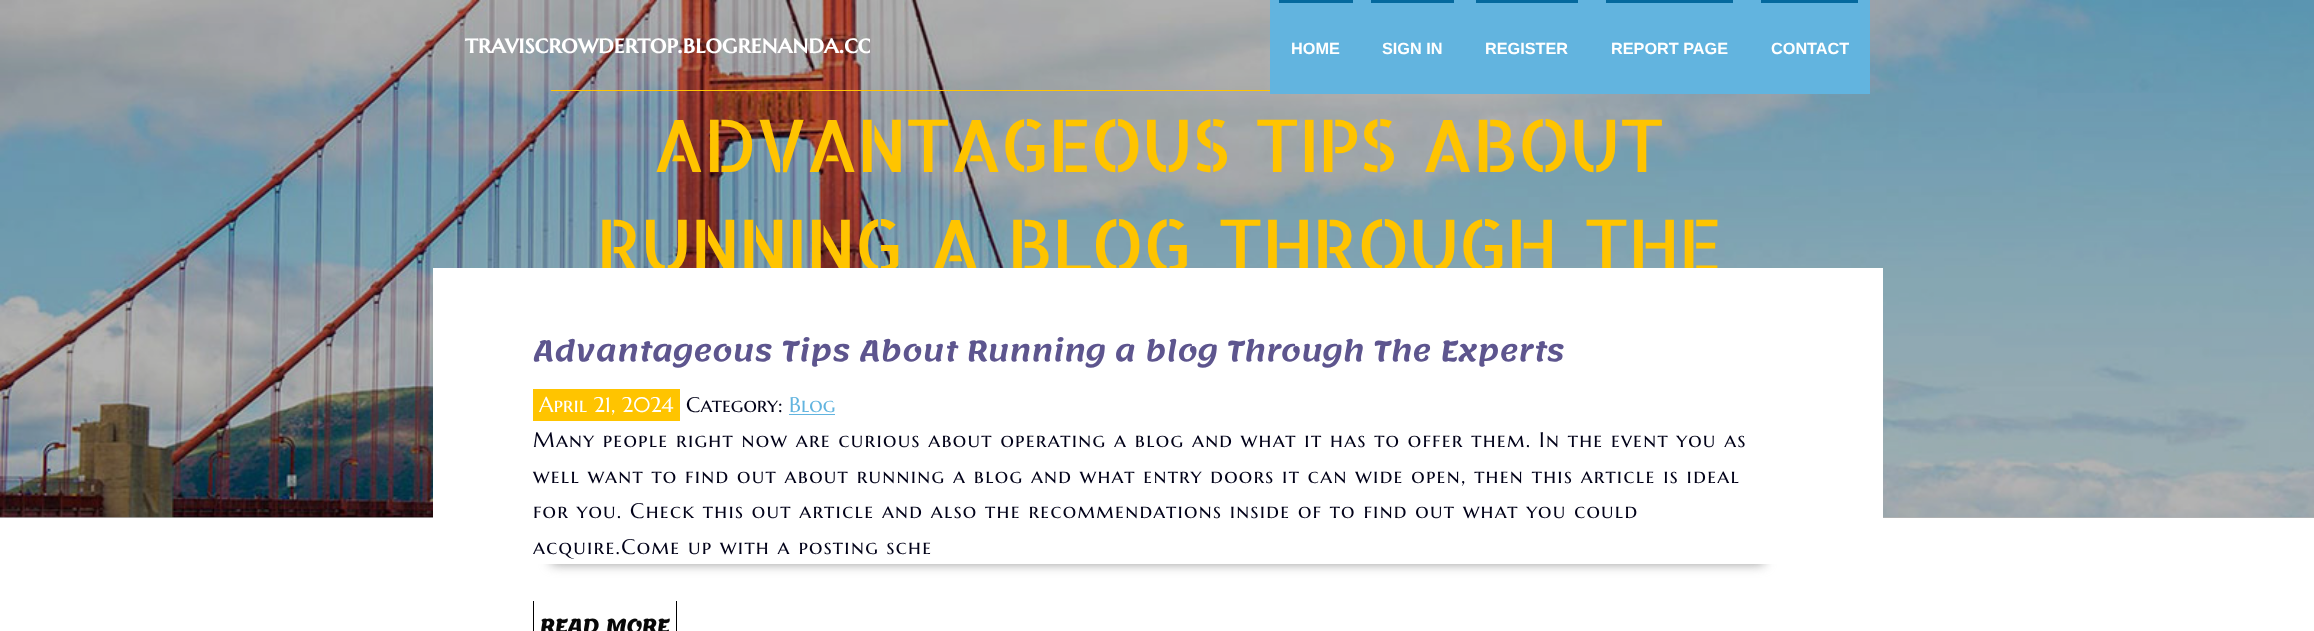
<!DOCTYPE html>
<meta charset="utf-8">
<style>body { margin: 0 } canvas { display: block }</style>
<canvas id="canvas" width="2314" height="631"></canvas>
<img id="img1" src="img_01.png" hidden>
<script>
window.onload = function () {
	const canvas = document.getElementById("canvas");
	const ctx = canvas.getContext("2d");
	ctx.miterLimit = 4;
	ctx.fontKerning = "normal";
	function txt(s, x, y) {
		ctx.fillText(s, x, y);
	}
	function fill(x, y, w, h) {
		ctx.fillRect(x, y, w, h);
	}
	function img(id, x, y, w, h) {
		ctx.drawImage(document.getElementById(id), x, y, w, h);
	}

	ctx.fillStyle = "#FFFFFF";
	fill(0, 0, 2314, 631);
	ctx.fillStyle = "#B3B3B3";
	fill(0, 517, 2314, 1);
	img("img1", 0, 0, 2314, 518);
	ctx.fillStyle = "#62B4DF";
	fill(1270, 0, 600, 94);
	ctx.fillStyle = "#04699E";
	fill(1279, 0, 74, 3);
	fill(1371, 0, 83, 3);
	fill(1476, 0, 102, 3);
	fill(1606, 0, 127, 3);
	fill(1761, 0, 97, 3);
	ctx.fillStyle = "#FFC400";
	fill(551, 90, 719, 1);
	ctx.fillStyle = "#000000";
	fill(533, 601, 1, 30);
	fill(676, 601, 1, 30);
	ctx.save();
	ctx.beginPath();
	ctx.rect(460, 9, 410, 75);
	ctx.clip();
	ctx.font = "bold 26.25px Marcellus SC";
	ctx.fillStyle = "#FFFFFF";
	txt("traviscrowdertop.blogrenanda.co", 465, 53);
	ctx.restore();
	ctx.font = "bold 16.25px Liberation Sans";
	ctx.fillStyle = "#FFFFFF";
	txt("HOME", 1291, 54);
	txt("SIGN IN", 1382, 54);
	txt("REGISTER", 1485, 54);
	txt("REPORT PAGE", 1611, 54);
	txt("CONTACT", 1771, 54);
	ctx.letterSpacing = "-2.5px";
	ctx.wordSpacing = "10px";
	ctx.font = "72.5px Allerta Stencil";
	ctx.fillStyle = "#FFC400";
	txt("ADVANTAGEOUS TIPS ABOUT", 652, 172);
	txt("RUNNING A BLOG THROUGH THE", 596, 272);
	ctx.fillStyle = "#FFFFFF";
	fill(433, 268, 1450, 250);
	ctx.letterSpacing = "0px";
	ctx.wordSpacing = "0px";
	ctx.font = "600 28.75px Lemonada";
	ctx.fillStyle = "#5D558E";
	txt("Advantageous Tips About Running a blog Through The Experts", 533, 361);
	ctx.fillStyle = "#FFC400";
	fill(533, 389, 147, 32);
	ctx.font = "21.25px Marcellus SC";
	ctx.fillStyle = "#FFFFFF";
	txt("April 21, 2024", 539, 412);
	ctx.fillStyle = "#010118";
	txt("Category:", 686, 412);
	ctx.fillStyle = "#62B4DF";
	txt("Blog", 789, 412);
	fill(789, 414, 46, 1);
	ctx.save();
	ctx.beginPath();
	ctx.moveTo(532, 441);
	ctx.lineTo(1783, 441);
	ctx.lineTo(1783, 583);
	ctx.lineTo(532, 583);
	ctx.closePath();
	ctx.moveTo(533, 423);
	ctx.lineTo(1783, 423);
	ctx.lineTo(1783, 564);
	ctx.lineTo(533, 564);
	ctx.closePath();
	ctx.clip("evenodd");
	ctx.fillStyle = "#999999";
	ctx.filter = "blur(6px)";
	ctx.beginPath();
	ctx.rect(551, 460, 1213, 104);
	ctx.fill();
	ctx.filter = "none";
	ctx.restore();
	ctx.letterSpacing = "1.25px";
	ctx.fillStyle = "#010118";
	txt("Many people right now are curious about operating a blog and what it has to offer them. In the event you as", 533, 447);
	txt("well want to find out about running a blog and what entry doors it can wide open, then this article is ideal", 533, 483);
	txt("for you. Check this out article and also the recommendations inside of to find out what you could", 533, 518);
	txt("acquire.Come up with a posting sche", 533, 554);
	ctx.letterSpacing = "0px";
	ctx.font = "bold 20px Lemonada";
	ctx.fillStyle = "#080808";
	txt("READ MORE", 540, 633);
};
</script>
